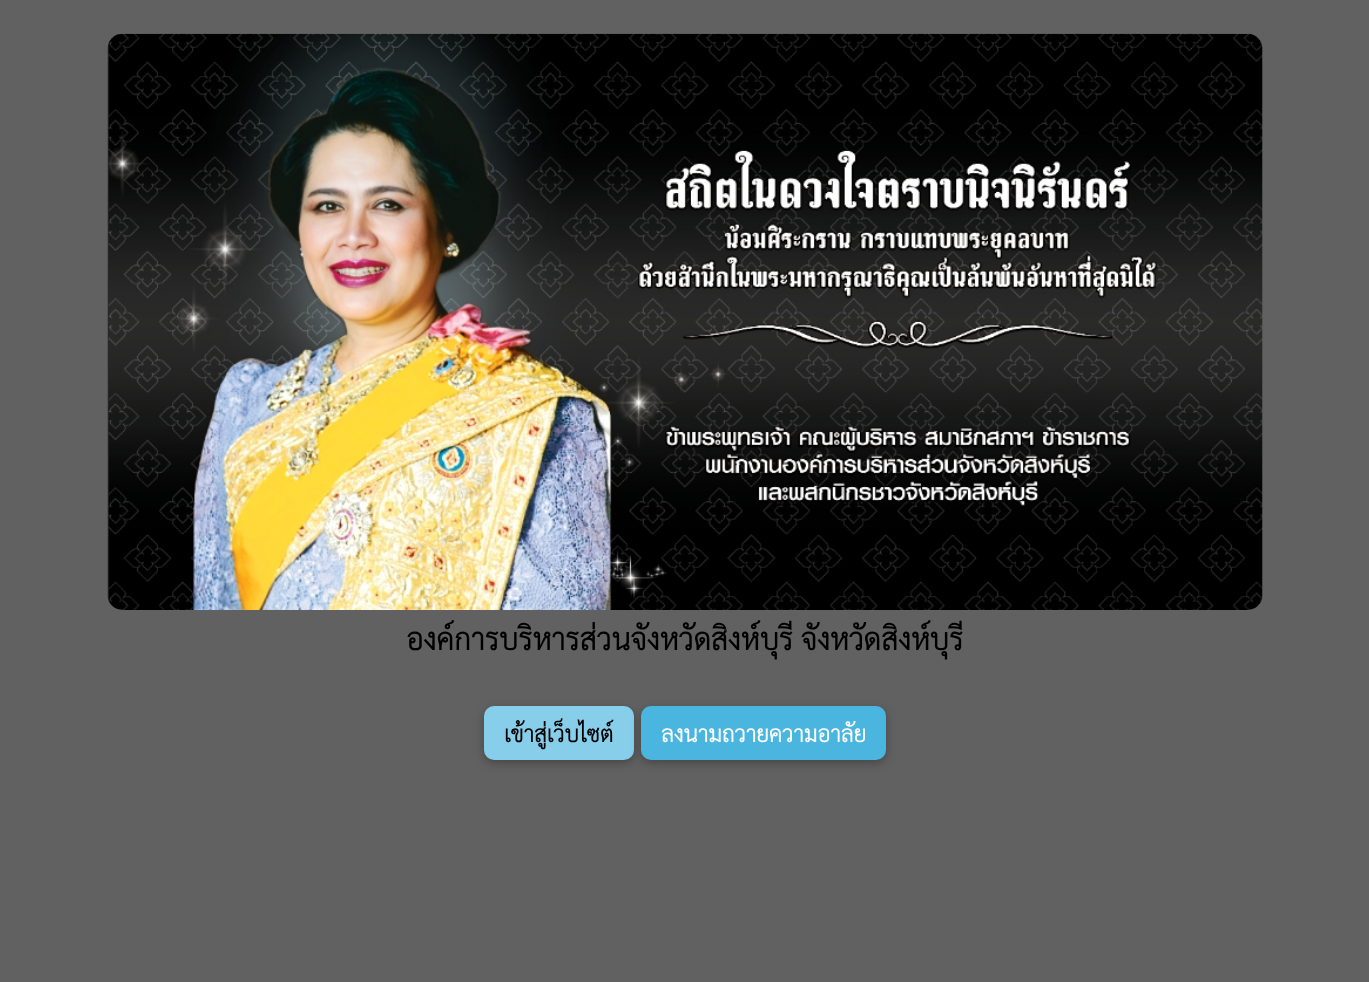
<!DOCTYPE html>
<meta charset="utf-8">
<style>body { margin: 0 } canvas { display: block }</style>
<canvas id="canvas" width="1369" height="982"></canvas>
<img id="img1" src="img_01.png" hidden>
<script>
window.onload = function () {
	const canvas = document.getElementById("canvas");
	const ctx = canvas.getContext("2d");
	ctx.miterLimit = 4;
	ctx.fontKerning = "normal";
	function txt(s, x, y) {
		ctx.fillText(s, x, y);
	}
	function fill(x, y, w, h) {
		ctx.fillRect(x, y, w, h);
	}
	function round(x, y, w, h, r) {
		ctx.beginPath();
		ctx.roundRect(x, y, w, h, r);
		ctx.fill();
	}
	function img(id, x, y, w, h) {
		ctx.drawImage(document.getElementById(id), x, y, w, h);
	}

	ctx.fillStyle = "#616161";
	fill(0, 0, 1369, 982);
	img("img1", 107, 33, 1156, 577);
	ctx.fillStyle = "rgba(0, 0, 0, 0.12)";
	ctx.filter = "blur(6px)";
	ctx.beginPath();
	ctx.roundRect(484, 709, 150, 54, 10);
	ctx.fill();
	ctx.filter = "none";
	ctx.fillStyle = "rgba(0, 0, 0, 0.16)";
	ctx.filter = "blur(3px)";
	ctx.beginPath();
	ctx.roundRect(484, 709, 150, 54, 10);
	ctx.fill();
	ctx.filter = "none";
	ctx.fillStyle = "#87CEEB";
	round(484, 706, 150, 54, 10);
	ctx.fillStyle = "rgba(0, 0, 0, 0.12)";
	ctx.filter = "blur(6px)";
	ctx.beginPath();
	ctx.roundRect(641, 709, 245, 54, 10);
	ctx.fill();
	ctx.filter = "none";
	ctx.fillStyle = "rgba(0, 0, 0, 0.16)";
	ctx.filter = "blur(3px)";
	ctx.beginPath();
	ctx.roundRect(641, 709, 245, 54, 10);
	ctx.fill();
	ctx.filter = "none";
	ctx.fillStyle = "#4AB6E0";
	round(641, 706, 245, 54, 10);
	ctx.font = "bold 30px Sarabun";
	ctx.fillStyle = "#000000";
	txt("องค์การบริหารส่วนจังหวัดสิงห์บุรี จังหวัดสิงห์บุรี", 406, 650);
	ctx.font = "bold 22.5px Sarabun";
	txt("เข้าสู่เว็บไซต์", 504, 742);
	ctx.fillStyle = "#FFFFFF";
	txt("ลงนามถวายความอาลัย", 661, 742);
};
</script>
